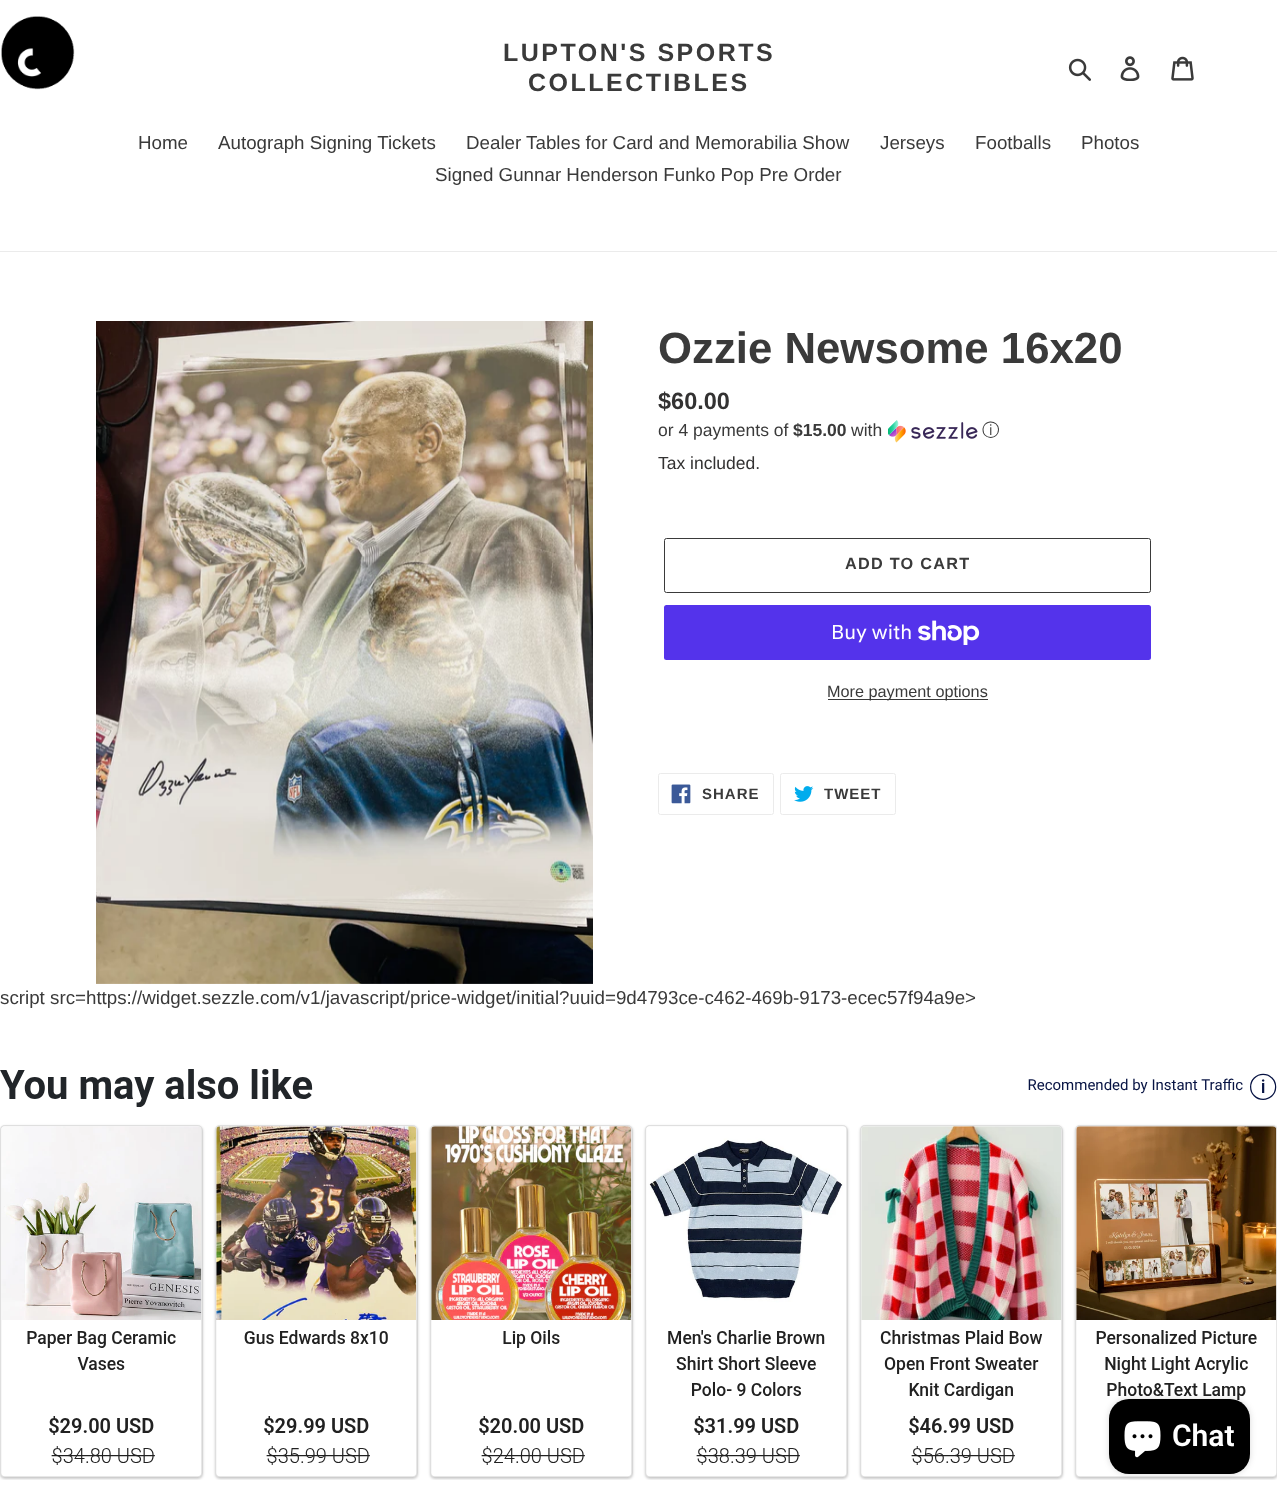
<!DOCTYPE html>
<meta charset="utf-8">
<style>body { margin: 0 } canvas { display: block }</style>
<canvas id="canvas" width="1277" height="1499"></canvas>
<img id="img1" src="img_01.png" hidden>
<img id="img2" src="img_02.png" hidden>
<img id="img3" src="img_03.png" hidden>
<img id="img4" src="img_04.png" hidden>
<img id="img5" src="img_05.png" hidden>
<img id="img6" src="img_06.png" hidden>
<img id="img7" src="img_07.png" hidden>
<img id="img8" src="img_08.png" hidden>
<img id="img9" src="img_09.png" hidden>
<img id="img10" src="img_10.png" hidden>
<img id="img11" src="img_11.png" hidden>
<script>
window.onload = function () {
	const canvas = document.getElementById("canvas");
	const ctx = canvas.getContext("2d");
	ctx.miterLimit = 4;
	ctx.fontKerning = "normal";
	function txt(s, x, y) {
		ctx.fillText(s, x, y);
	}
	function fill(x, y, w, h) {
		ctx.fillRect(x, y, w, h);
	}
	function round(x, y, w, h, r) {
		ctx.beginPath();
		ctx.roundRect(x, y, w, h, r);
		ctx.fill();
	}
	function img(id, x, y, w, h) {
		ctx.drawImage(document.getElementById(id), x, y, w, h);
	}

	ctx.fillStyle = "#FFFFFF";
	fill(0, 0, 1277, 1499);
	img("img1", 1, 16, 74, 74);
	img("img2", 1068, 58, 23, 23);
	img("img3", 1120, 56, 20, 25);
	img("img4", 1171, 56, 23, 25);
	ctx.fillStyle = "#EBEBEB";
	fill(0, 251, 1277, 1);
	img("img5", 96, 321, 497, 663);
	img("img6", 888, 420, 90, 23);
	ctx.beginPath();
	ctx.roundRect(664.5, 538.5, 486, 54, 2);
	ctx.strokeStyle = "#3A3A3A";
	ctx.stroke();
	ctx.fillStyle = "#5433EB";
	round(664, 605, 487, 55, 2.5);
	img("img7", 918, 620, 62, 25);
	ctx.fillStyle = "#3A3A3A";
	fill(828, 699, 160, 1);
	ctx.beginPath();
	ctx.roundRect(658.5, 773.5, 115, 41, 2);
	ctx.strokeStyle = "#EBEBEB";
	ctx.stroke();
	img("img8", 671, 784, 20, 20);
	ctx.beginPath();
	ctx.roundRect(780.5, 773.5, 115, 41, 2);
	ctx.stroke();
	img("img9", 794, 786, 20, 16);
	img("img10", 0, 1069, 1277, 411);
	ctx.fillStyle = "rgba(0, 0, 0, 0.15)";
	ctx.filter = "blur(3px)";
	ctx.beginPath();
	ctx.roundRect(1109, 1399, 141, 75, 20);
	ctx.fill();
	ctx.filter = "none";
	ctx.fillStyle = "#000000";
	round(1109, 1399, 141, 75, 20);
	img("img11", 1124, 1421, 37, 37);
	ctx.letterSpacing = "2.5px";
	ctx.font = "bold 25px Liberation Sans";
	ctx.fillStyle = "#3A3A3A";
	txt("LUPTON'S SPORTS", 503, 61);
	txt("COLLECTIBLES", 528, 91);
	ctx.letterSpacing = "0px";
	ctx.font = "18.75px Liberation Sans";
	txt("Home", 138, 149);
	txt("Autograph Signing Tickets", 218, 149);
	txt("Dealer Tables for Card and Memorabilia Show", 466, 149);
	txt("Jerseys", 880, 149);
	txt("Footballs", 975, 149);
	txt("Photos", 1081, 149);
	txt("Signed Gunnar Henderson Funko Pop Pre Order", 435, 181);
	ctx.font = "bold 43.75px Liberation Sans";
	txt("Ozzie Newsome 16x20", 658, 363);
	ctx.font = "bold 23.5px Liberation Sans";
	ctx.fillStyle = "#333232";
	txt("$60.00", 658, 409);
	ctx.font = "17.5px Liberation Sans";
	ctx.fillStyle = "#3A3A3A";
	txt("or 4 payments of", 658, 436);
	ctx.font = "bold 17.5px Liberation Sans";
	txt("$15.00", 793, 436);
	ctx.font = "17.5px Liberation Sans";
	txt("with", 851, 436);
	ctx.font = "500 17.5px WenQuanYi Zen Hei";
	txt("ⓘ", 982, 436);
	ctx.font = "17.5px Liberation Sans";
	ctx.fillStyle = "#333232";
	txt("Tax included.", 658, 469);
	ctx.letterSpacing = "1.25px";
	ctx.font = "bold 16.25px Liberation Sans";
	ctx.fillStyle = "#3A3A3A";
	txt("ADD TO CART", 845, 569);
	ctx.letterSpacing = "0px";
	ctx.font = "20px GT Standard";
	ctx.fillStyle = "#FFFFFF";
	txt("Buy with", 831, 639);
	ctx.font = "16.25px Liberation Sans";
	ctx.fillStyle = "#3A3A3A";
	txt("More payment options", 827, 697);
	ctx.letterSpacing = "1px";
	ctx.font = "bold 15px Liberation Sans";
	txt("SHARE", 702, 799);
	txt("TWEET", 824, 799);
	ctx.letterSpacing = "0px";
	ctx.font = "18.75px Liberation Sans";
	txt("script src=https://widget.sezzle.com/v1/javascript/price-widget/initial?uuid=9d4793ce-c462-469b-9173-ecec57f94a9e>", 0, 1004);
	ctx.font = "600 30px Roboto";
	ctx.fillStyle = "#FFFFFF";
	txt("Chat", 1172, 1446);
};
</script>
